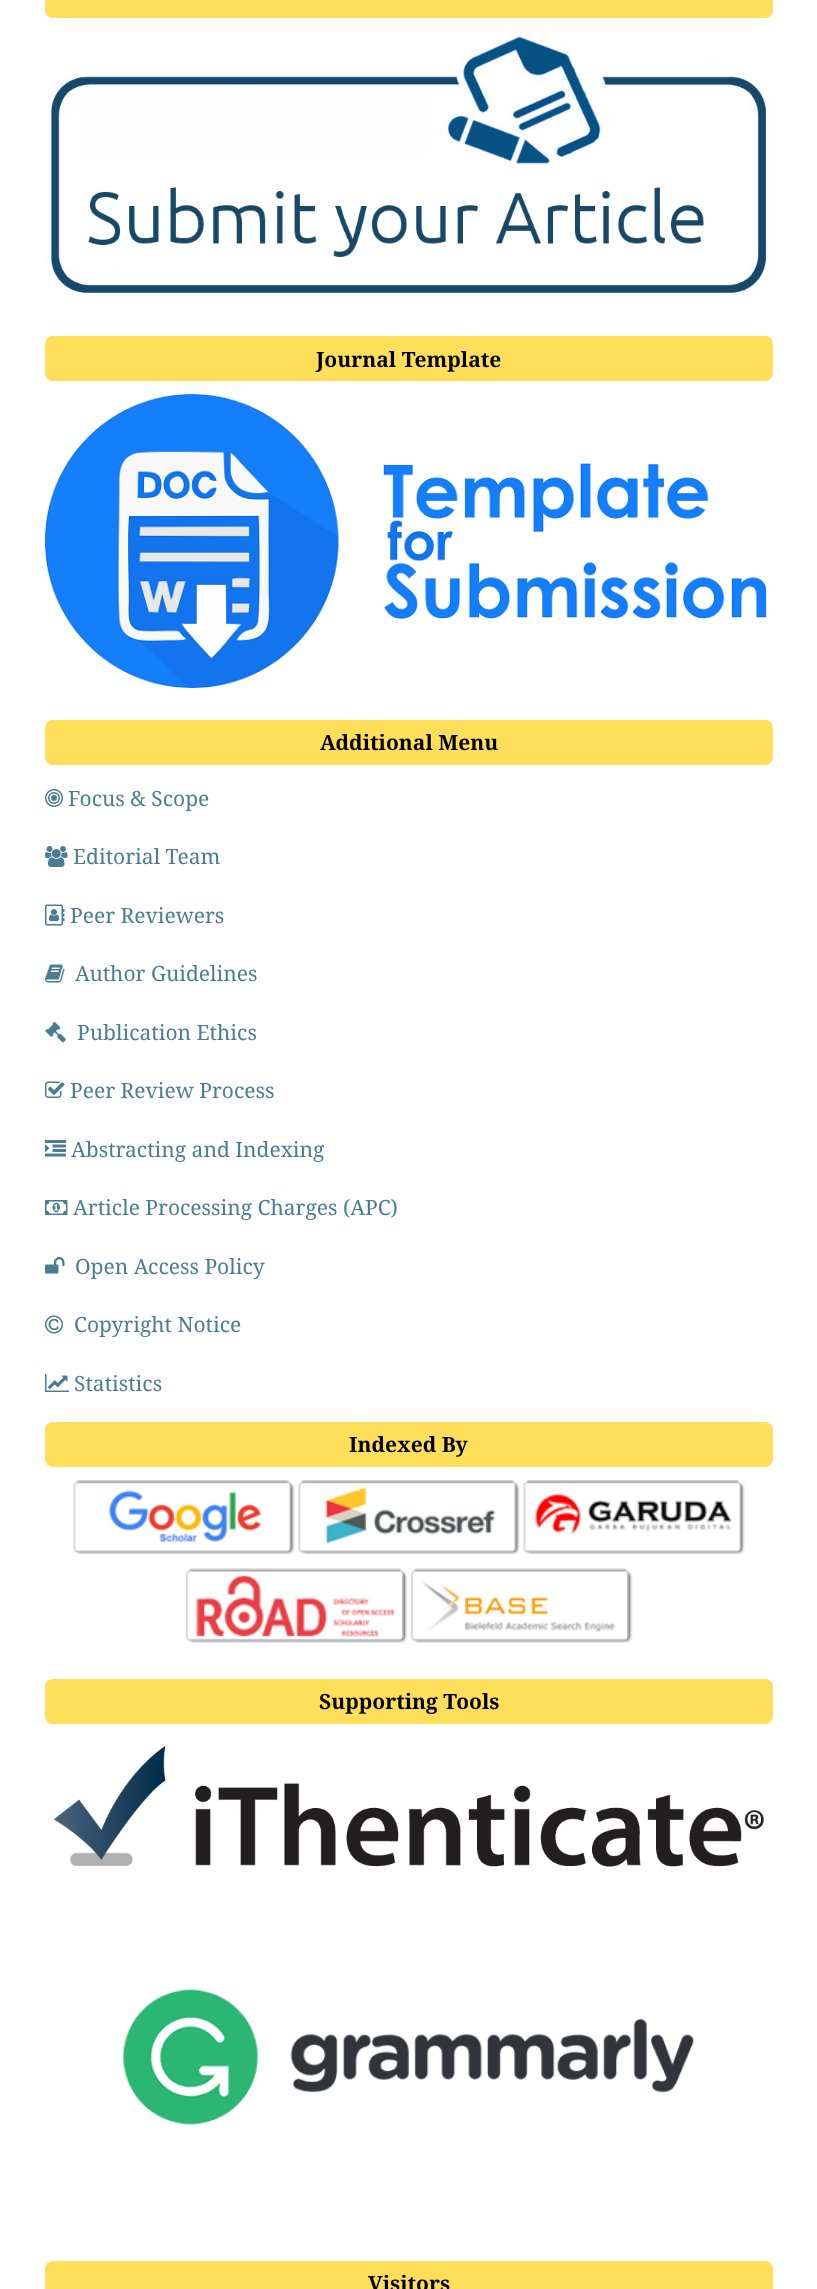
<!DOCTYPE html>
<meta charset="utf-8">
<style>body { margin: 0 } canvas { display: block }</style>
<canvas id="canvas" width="817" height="2289"></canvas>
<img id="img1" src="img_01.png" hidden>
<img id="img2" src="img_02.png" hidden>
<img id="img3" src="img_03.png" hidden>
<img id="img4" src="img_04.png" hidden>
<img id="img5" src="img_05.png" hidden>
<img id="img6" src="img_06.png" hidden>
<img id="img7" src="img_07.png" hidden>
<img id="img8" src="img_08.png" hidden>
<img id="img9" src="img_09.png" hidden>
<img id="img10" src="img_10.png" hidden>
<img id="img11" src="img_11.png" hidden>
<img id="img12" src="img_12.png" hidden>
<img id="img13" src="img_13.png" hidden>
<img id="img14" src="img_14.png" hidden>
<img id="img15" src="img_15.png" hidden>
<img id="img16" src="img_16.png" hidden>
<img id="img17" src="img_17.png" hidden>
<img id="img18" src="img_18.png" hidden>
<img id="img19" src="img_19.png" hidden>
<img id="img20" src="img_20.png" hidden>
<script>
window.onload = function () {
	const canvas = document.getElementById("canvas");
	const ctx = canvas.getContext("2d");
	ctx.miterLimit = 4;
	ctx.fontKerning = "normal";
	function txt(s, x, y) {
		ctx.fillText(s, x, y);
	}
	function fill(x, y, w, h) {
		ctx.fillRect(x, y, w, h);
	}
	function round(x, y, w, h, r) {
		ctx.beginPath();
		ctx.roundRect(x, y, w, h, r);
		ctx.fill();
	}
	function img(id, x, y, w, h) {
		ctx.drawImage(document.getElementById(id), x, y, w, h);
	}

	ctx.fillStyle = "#FFFFFF";
	fill(0, 0, 817, 2289);
	ctx.fillStyle = "#FFDE59";
	round(45, -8, 728, 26, 8);
	img("img1", 45, 35, 728, 263);
	round(45, 336, 728, 45, 8);
	img("img2", 45, 394, 722, 294);
	round(45, 720, 728, 45, 8);
	img("img3", 45, 789, 18, 18);
	img("img4", 45, 846, 23, 21);
	img("img5", 45, 904, 20, 22);
	img("img6", 45, 964, 20, 19);
	img("img7", 45, 1022, 21, 21);
	img("img8", 45, 1081, 20, 17);
	img("img9", 45, 1140, 21, 17);
	img("img10", 45, 1200, 23, 15);
	img("img11", 45, 1257, 20, 17);
	img("img12", 45, 1315, 18, 19);
	img("img13", 45, 1374, 24, 18);
	round(45, 1422, 728, 45, 8);
	img("img14", 73, 1480, 222, 75);
	img("img15", 298, 1480, 222, 75);
	img("img16", 523, 1480, 222, 75);
	img("img17", 185, 1568, 223, 75);
	img("img18", 410, 1568, 223, 75);
	round(45, 1679, 728, 45, 8);
	img("img19", 53, 1745, 711, 122);
	img("img20", 123, 1989, 571, 136);
	round(45, 2261, 728, 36, 8);
	ctx.font = "bold 21px Noto Serif";
	ctx.fillStyle = "#000000";
	txt("Journal Template", 316, 367);
	txt("Additional Menu", 320, 750);
	ctx.font = "21px Noto Serif";
	ctx.fillStyle = "#4B7D92";
	txt("Focus & Scope", 68, 806);
	txt("Editorial Team", 73, 864);
	txt("Peer Reviewers", 70, 923);
	txt("Author Guidelines", 75, 981);
	txt("Publication Ethics", 77, 1040);
	txt("Peer Review Process", 70, 1098);
	txt("Abstracting and Indexing", 71, 1157);
	txt("Article Processing Charges (APC)", 73, 1215);
	txt("Open Access Policy", 75, 1274);
	txt("Copyright Notice", 74, 1332);
	txt("Statistics", 74, 1391);
	ctx.font = "bold 21px Noto Serif";
	ctx.fillStyle = "#000000";
	txt("Indexed By", 349, 1452);
	txt("Supporting Tools", 319, 1709);
	txt("Visitors", 368, 2291);
};
</script>
